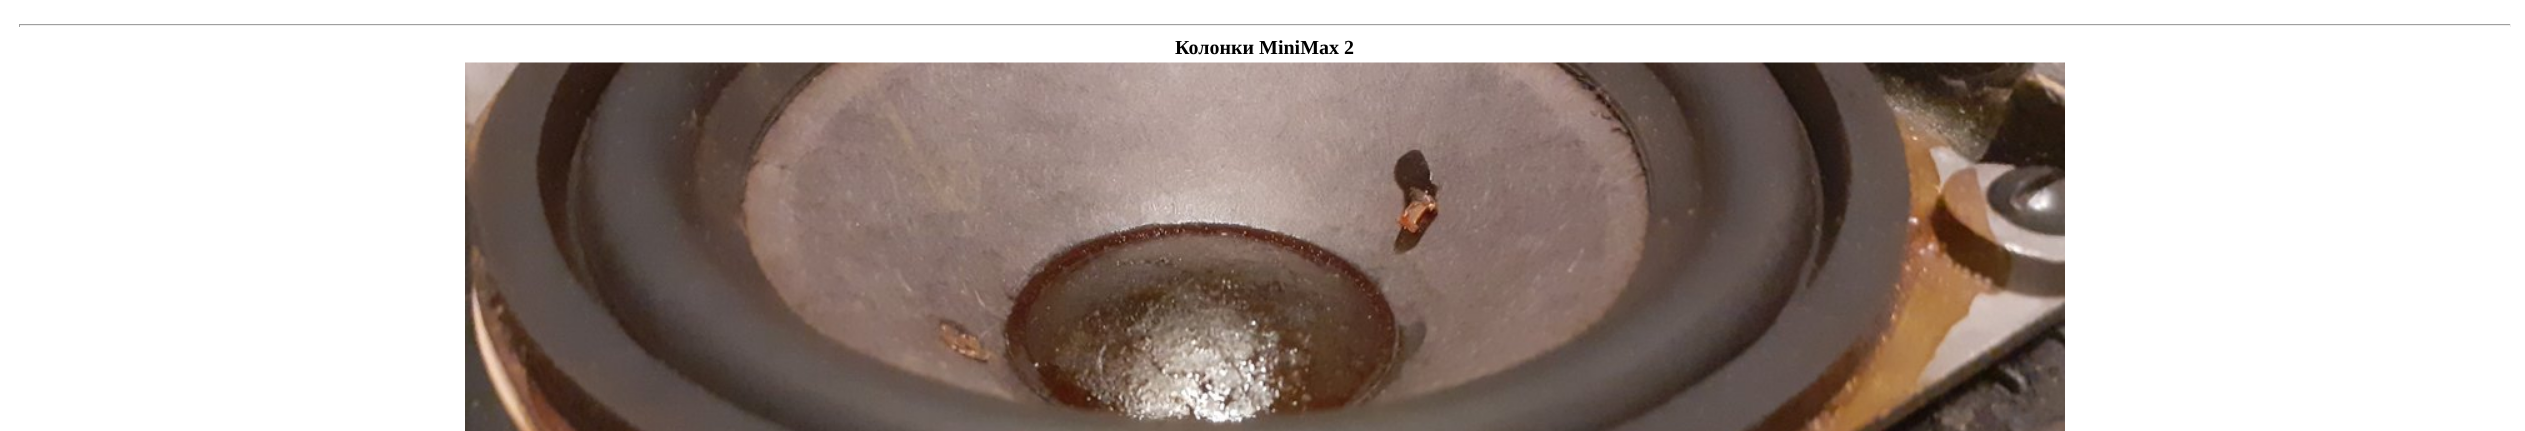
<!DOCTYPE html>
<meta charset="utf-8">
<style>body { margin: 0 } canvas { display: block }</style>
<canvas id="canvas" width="2525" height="431"></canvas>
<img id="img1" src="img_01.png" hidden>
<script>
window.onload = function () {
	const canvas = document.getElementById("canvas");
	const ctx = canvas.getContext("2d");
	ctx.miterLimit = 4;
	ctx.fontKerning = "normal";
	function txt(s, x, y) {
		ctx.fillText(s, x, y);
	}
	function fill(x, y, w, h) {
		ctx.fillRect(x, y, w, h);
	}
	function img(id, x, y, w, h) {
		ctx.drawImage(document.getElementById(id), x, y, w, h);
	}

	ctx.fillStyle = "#FFFFFF";
	fill(0, 0, 2525, 431);
	ctx.fillStyle = "#9F9F9F";
	fill(19, 24, 2492, 1);
	ctx.fillStyle = "#EEEEEE";
	fill(2510, 24, 1, 3);
	fill(19, 25, 2492, 1);
	ctx.fillStyle = "#9F9F9F";
	fill(19, 24, 1, 3);
	img("img1", 465, 62, 1600, 369);
	ctx.font = "bold 20px Liberation Serif";
	ctx.fillStyle = "#000000";
	txt("Колонки MiniMax 2", 1175, 54);
};
</script>
